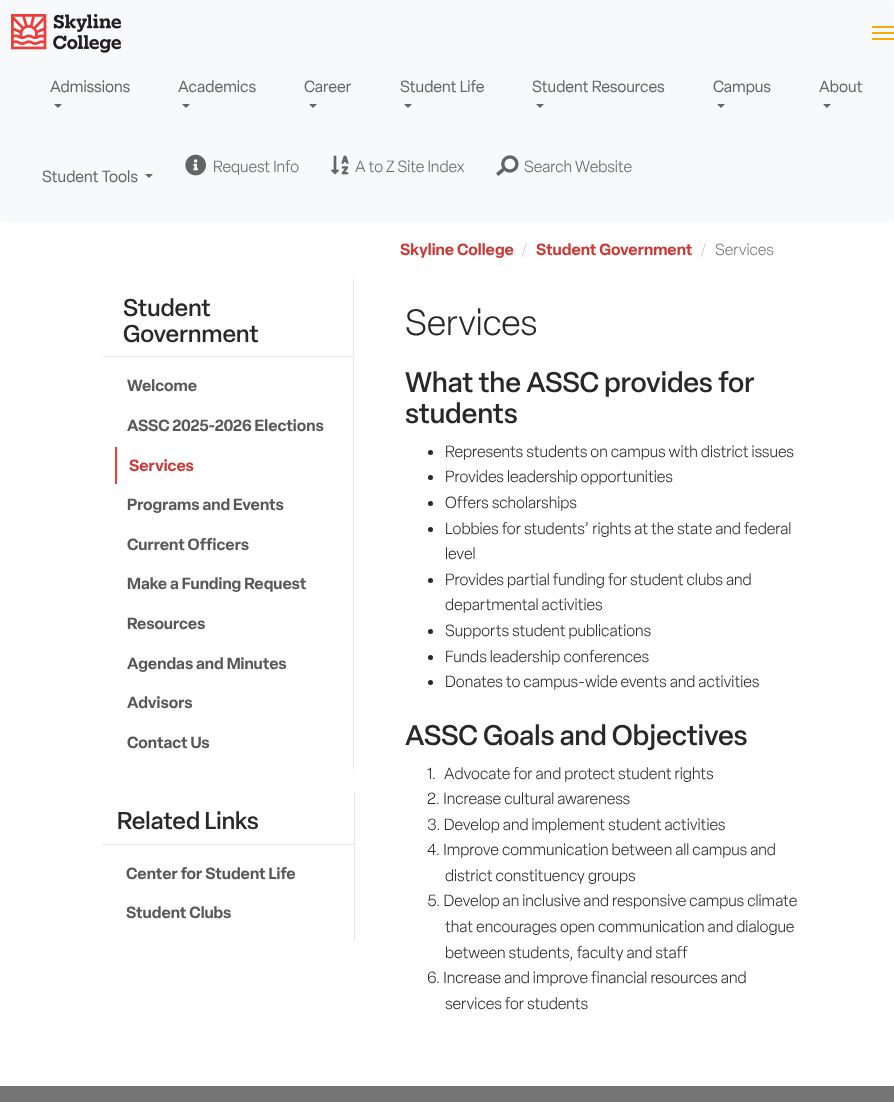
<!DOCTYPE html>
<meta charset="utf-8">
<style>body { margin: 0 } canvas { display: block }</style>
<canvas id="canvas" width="894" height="1102"></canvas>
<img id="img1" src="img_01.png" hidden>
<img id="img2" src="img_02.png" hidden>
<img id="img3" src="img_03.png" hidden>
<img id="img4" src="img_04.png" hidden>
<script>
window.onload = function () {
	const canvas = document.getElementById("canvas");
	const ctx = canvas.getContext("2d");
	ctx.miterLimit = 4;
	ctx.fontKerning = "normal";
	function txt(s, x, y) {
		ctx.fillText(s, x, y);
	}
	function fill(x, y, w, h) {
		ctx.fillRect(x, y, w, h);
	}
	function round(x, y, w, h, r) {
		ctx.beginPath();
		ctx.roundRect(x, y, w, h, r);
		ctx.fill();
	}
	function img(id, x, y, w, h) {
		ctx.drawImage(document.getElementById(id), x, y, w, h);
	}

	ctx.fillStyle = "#FFFFFF";
	fill(0, 0, 894, 1102);
	ctx.fillStyle = "#F8F9FA";
	round(0, 0, 894, 222, 4);
	img("img1", 11, 14, 110, 39);
	ctx.fillStyle = "#FCA903";
	fill(872, 26, 22, 2);
	fill(872, 32, 22, 2);
	fill(872, 38, 22, 2);
	ctx.fillStyle = "#636464";
	ctx.beginPath();
	ctx.moveTo(54, 104);
	ctx.lineTo(62, 104);
	ctx.lineTo(58, 108);
	ctx.closePath();
	ctx.fill();
	ctx.beginPath();
	ctx.moveTo(182, 104);
	ctx.lineTo(190, 104);
	ctx.lineTo(186, 108);
	ctx.closePath();
	ctx.fill();
	ctx.beginPath();
	ctx.moveTo(309, 104);
	ctx.lineTo(317, 104);
	ctx.lineTo(313, 108);
	ctx.closePath();
	ctx.fill();
	ctx.beginPath();
	ctx.moveTo(404, 104);
	ctx.lineTo(412, 104);
	ctx.lineTo(408, 108);
	ctx.closePath();
	ctx.fill();
	ctx.beginPath();
	ctx.moveTo(536, 104);
	ctx.lineTo(544, 104);
	ctx.lineTo(540, 108);
	ctx.closePath();
	ctx.fill();
	ctx.beginPath();
	ctx.moveTo(717, 104);
	ctx.lineTo(725, 104);
	ctx.lineTo(721, 108);
	ctx.closePath();
	ctx.fill();
	ctx.beginPath();
	ctx.moveTo(823, 104);
	ctx.lineTo(831, 104);
	ctx.lineTo(827, 108);
	ctx.closePath();
	ctx.fill();
	img("img2", 185, 154, 21, 22);
	img("img3", 331, 155, 18, 20);
	img("img4", 496, 155, 23, 21);
	ctx.beginPath();
	ctx.moveTo(145, 174);
	ctx.lineTo(153, 174);
	ctx.lineTo(149, 178);
	ctx.closePath();
	ctx.fill();
	ctx.fillStyle = "#E6E6E6";
	fill(353, 279, 1, 78);
	fill(103, 356, 251, 1);
	fill(353, 359, 1, 410);
	ctx.fillStyle = "#EF3E3A";
	fill(115, 447, 2, 37);
	ctx.fillStyle = "#E6E6E6";
	fill(354, 792, 1, 53);
	fill(102, 844, 253, 1);
	fill(354, 847, 1, 93);
	ctx.fillStyle = "#282828";
	ctx.beginPath();
	ctx.arc(430.5, 452.5, 2.5, 0, Math.PI * 2);
	ctx.fill();
	ctx.beginPath();
	ctx.arc(430.5, 477.5, 2.5, 0, Math.PI * 2);
	ctx.fill();
	ctx.beginPath();
	ctx.arc(430.5, 503.5, 2.5, 0, Math.PI * 2);
	ctx.fill();
	ctx.beginPath();
	ctx.arc(430.5, 529.5, 2.5, 0, Math.PI * 2);
	ctx.fill();
	ctx.beginPath();
	ctx.arc(430.5, 580.5, 2.5, 0, Math.PI * 2);
	ctx.fill();
	ctx.beginPath();
	ctx.arc(430.5, 631.5, 2.5, 0, Math.PI * 2);
	ctx.fill();
	ctx.beginPath();
	ctx.arc(430.5, 657.5, 2.5, 0, Math.PI * 2);
	ctx.fill();
	ctx.beginPath();
	ctx.arc(430.5, 682.5, 2.5, 0, Math.PI * 2);
	ctx.fill();
	ctx.fillStyle = "#757575";
	fill(0, 1086, 894, 16);
	ctx.font = "16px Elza";
	ctx.fillStyle = "#636464";
	txt("Admissions", 50, 92);
	txt("Academics", 178, 92);
	txt("Career", 304, 92);
	txt("Student Life", 400, 92);
	txt("Student Resources", 532, 92);
	txt("Campus", 713, 92);
	txt("About", 819, 92);
	ctx.font = "300 16px Elza";
	txt("Request Info", 213, 172);
	txt("A to Z Site Index", 355, 172);
	txt("Search Website", 524, 172);
	ctx.font = "16px Elza";
	txt("Student Tools", 42, 182);
	ctx.font = "600 16px Elza";
	ctx.fillStyle = "#CC3834";
	txt("Skyline College", 400, 255);
	ctx.font = "300 16px Elza";
	ctx.fillStyle = "#CCCCCC";
	txt("/", 521, 255);
	ctx.font = "600 16px Elza";
	ctx.fillStyle = "#CC3834";
	txt("Student Government", 536, 255);
	ctx.font = "300 16px Elza";
	ctx.fillStyle = "#CCCCCC";
	txt("/", 700, 255);
	ctx.fillStyle = "#777777";
	txt("Services", 715, 255);
	ctx.font = "500 24px Elza";
	ctx.fillStyle = "#282828";
	txt("Student", 123, 316);
	txt("Government", 123, 342);
	ctx.font = "600 16px Elza";
	ctx.fillStyle = "#585858";
	txt("Welcome", 127, 391);
	txt("ASSC 2025-2026 Elections", 127, 431);
	ctx.fillStyle = "#CC3834";
	txt("Services", 129, 471);
	ctx.fillStyle = "#585858";
	txt("Programs and Events", 127, 510);
	txt("Current Officers", 127, 550);
	txt("Make a Funding Request", 127, 589);
	txt("Resources", 127, 629);
	txt("Agendas and Minutes", 127, 669);
	txt("Advisors", 127, 708);
	txt("Contact Us", 127, 748);
	ctx.font = "500 24px Elza";
	ctx.fillStyle = "#282828";
	txt("Related Links", 117, 829);
	ctx.font = "600 16px Elza";
	ctx.fillStyle = "#585858";
	txt("Center for Student Life", 126, 879);
	txt("Student Clubs", 126, 918);
	ctx.font = "300 36px Elza";
	ctx.fillStyle = "#282828";
	txt("Services", 405, 335);
	ctx.font = "500 28px Elza";
	txt("What the ASSC provides for", 405, 392);
	txt("students", 405, 423);
	ctx.font = "300 16px Elza";
	txt("Represents students on campus with district issues", 445, 457);
	txt("Provides leadership opportunities", 445, 482);
	txt("Offers scholarships", 445, 508);
	txt("Lobbies for students’ rights at the state and federal", 445, 534);
	txt("level", 445, 559);
	txt("Provides partial funding for student clubs and", 445, 585);
	txt("departmental activities", 445, 610);
	txt("Supports student publications", 445, 636);
	txt("Funds leadership conferences", 445, 662);
	txt("Donates to campus-wide events and activities", 445, 687);
	ctx.font = "500 28px Elza";
	txt("ASSC Goals and Objectives", 405, 745);
	ctx.font = "300 16px Elza";
	txt("1.", 427, 779);
	txt("Advocate for and protect student rights", 444, 779);
	txt("2. Increase cultural awareness", 427, 804);
	txt("3. Develop and implement student activities", 427, 830);
	txt("4. Improve communication between all campus and", 427, 855);
	txt("district constituency groups", 445, 881);
	txt("5. Develop an inclusive and responsive campus climate", 427, 906);
	txt("that encourages open communication and dialogue", 445, 932);
	txt("between students, faculty and staff", 445, 958);
	txt("6. Increase and improve financial resources and", 427, 983);
	txt("services for students", 445, 1009);
};
</script>
